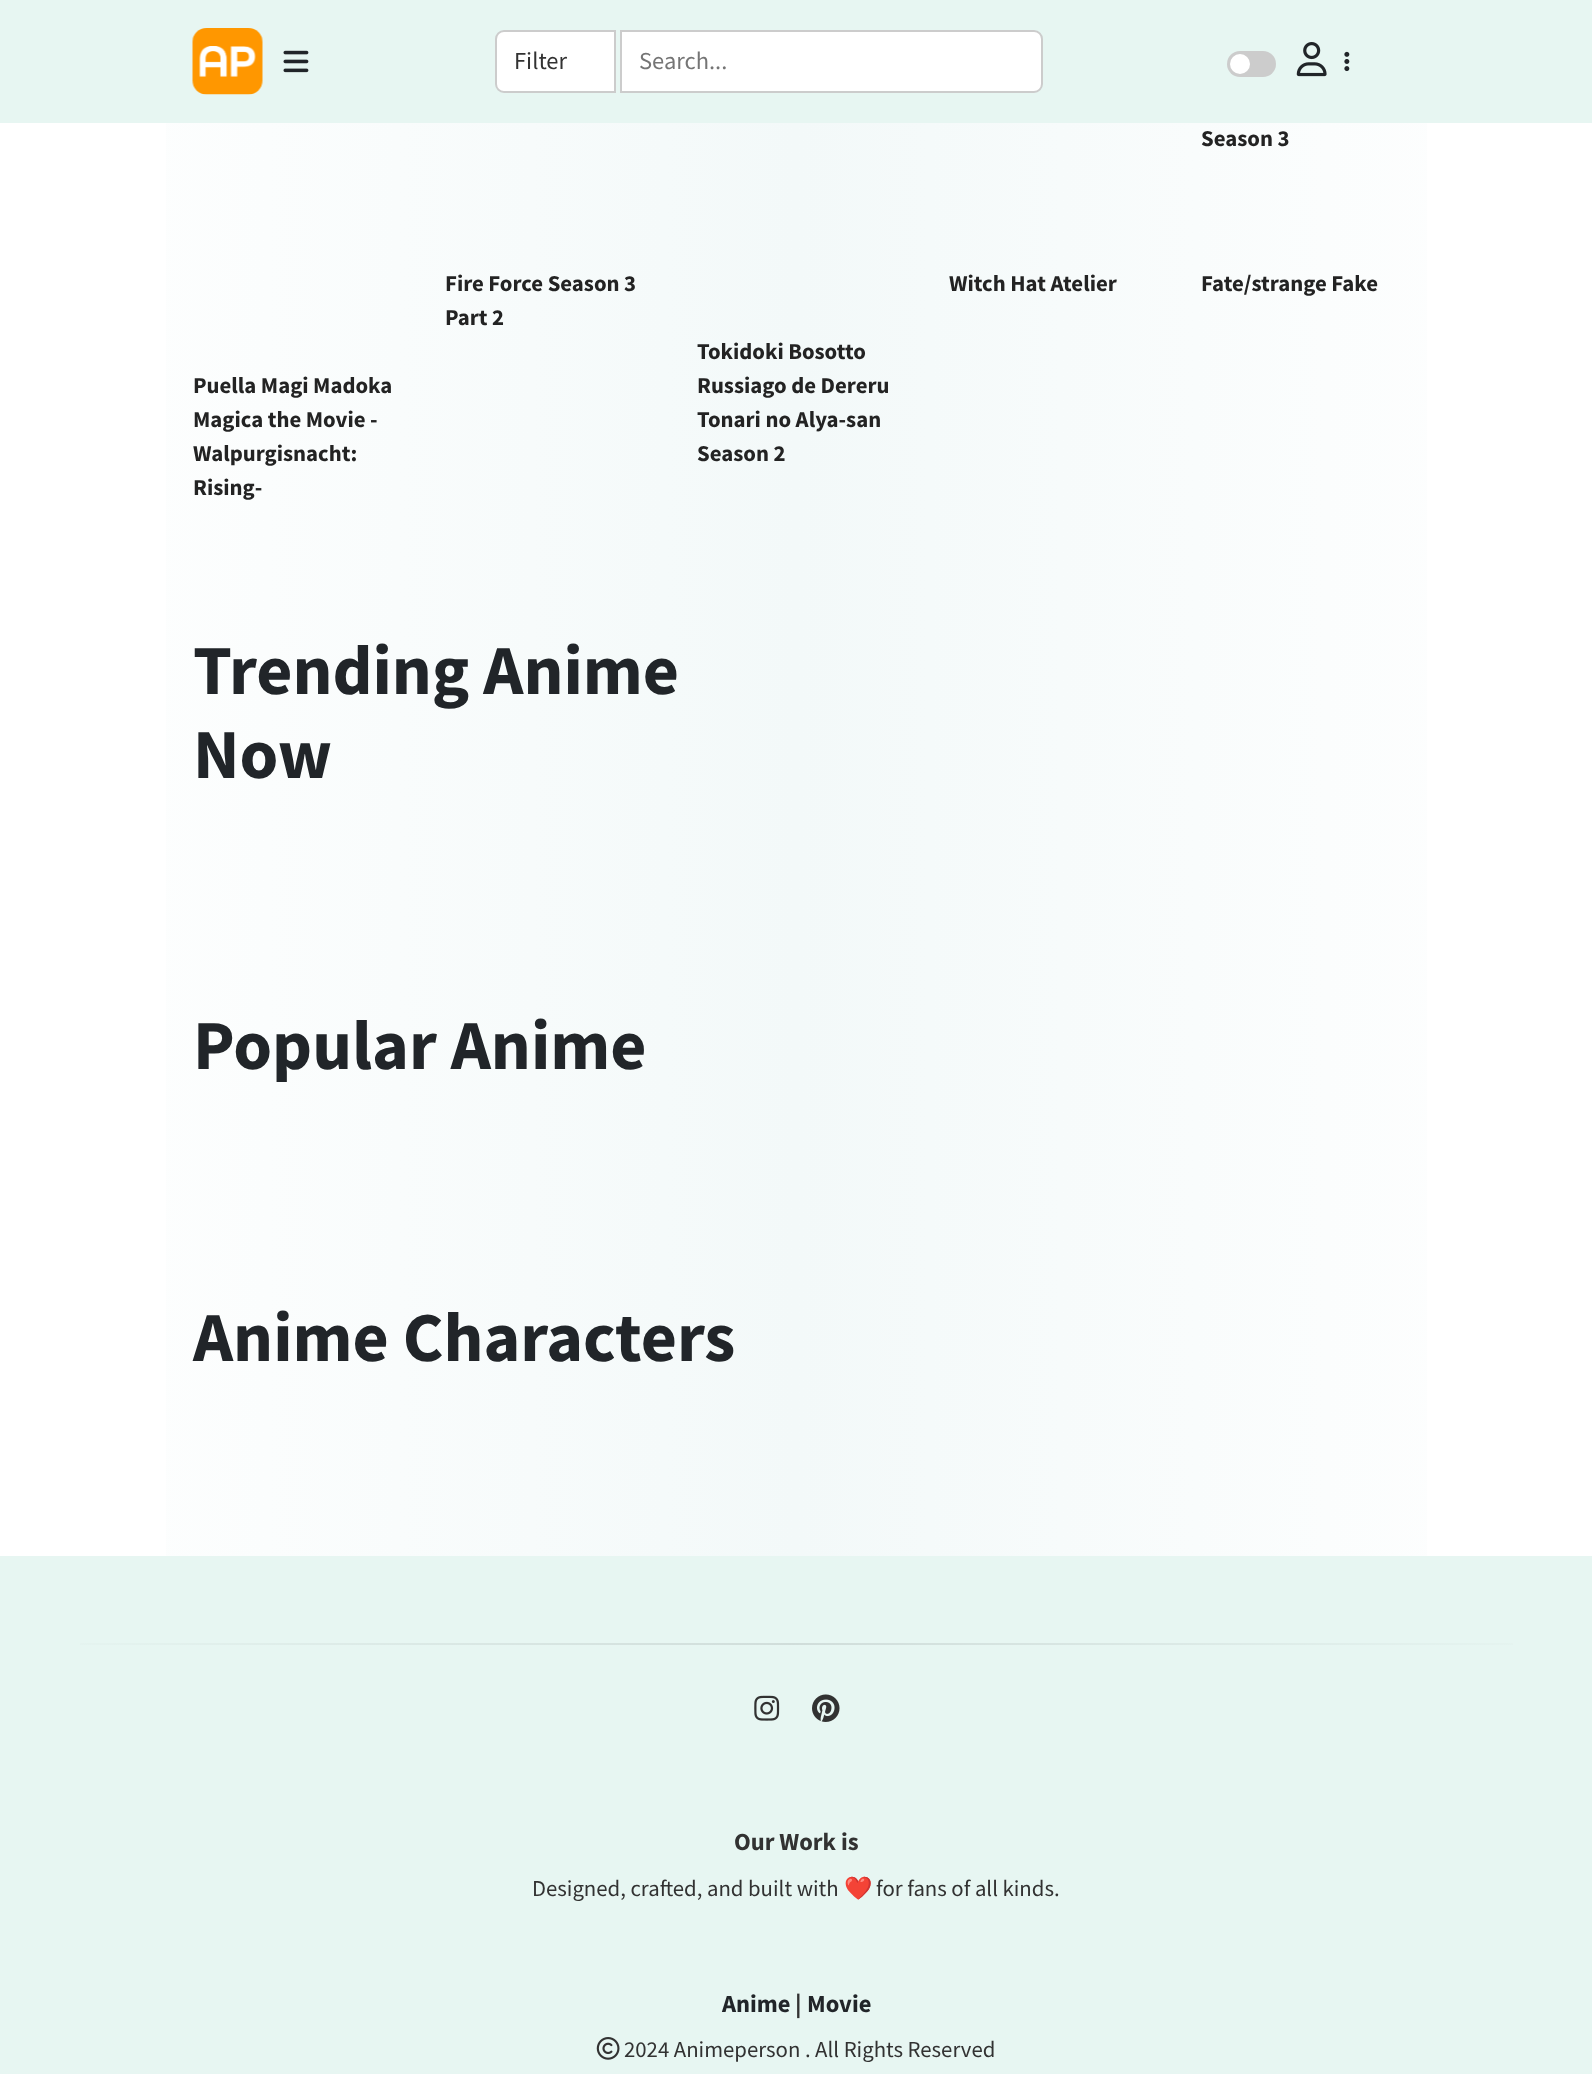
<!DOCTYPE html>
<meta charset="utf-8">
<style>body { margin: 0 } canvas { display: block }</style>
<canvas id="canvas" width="1592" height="2074"></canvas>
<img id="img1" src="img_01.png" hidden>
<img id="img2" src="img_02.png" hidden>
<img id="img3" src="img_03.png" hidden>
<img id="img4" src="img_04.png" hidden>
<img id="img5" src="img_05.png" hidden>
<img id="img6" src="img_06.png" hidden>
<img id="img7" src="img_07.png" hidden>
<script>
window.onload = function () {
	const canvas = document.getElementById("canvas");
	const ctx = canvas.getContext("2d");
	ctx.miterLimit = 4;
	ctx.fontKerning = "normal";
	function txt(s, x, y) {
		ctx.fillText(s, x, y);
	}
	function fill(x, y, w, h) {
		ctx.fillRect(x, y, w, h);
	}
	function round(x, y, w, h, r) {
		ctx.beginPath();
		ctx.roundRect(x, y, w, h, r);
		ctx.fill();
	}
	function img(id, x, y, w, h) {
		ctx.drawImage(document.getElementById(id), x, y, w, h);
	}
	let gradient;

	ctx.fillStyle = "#FFFFFF";
	fill(0, 0, 1592, 2074);
	ctx.fillStyle = "#E7F6F2";
	fill(0, 0, 1592, 123);
	img("img1", 192, 28, 71, 67);
	img("img2", 283, 50, 26, 23);
	ctx.fillStyle = "#FFFFFF";
	ctx.beginPath();
	ctx.roundRect(496, 31, 119, 61, [8, 0, 0, 8]);
	ctx.fill();
	ctx.strokeStyle = "#CCCCCC";
	ctx.lineWidth = 2;
	ctx.stroke();
	ctx.beginPath();
	ctx.roundRect(621, 31, 421, 61, [0, 8, 8, 0]);
	ctx.fill();
	ctx.stroke();
	ctx.fillStyle = "#CCCCCC";
	round(1227, 51, 49, 26, 13);
	ctx.fillStyle = "#FFFFFF";
	ctx.beginPath();
	ctx.arc(1240, 64, 10, 0, Math.PI * 2);
	ctx.fill();
	img("img3", 1296, 42, 31, 35);
	img("img4", 1344, 51, 6, 21);
	gradient = ctx.createLinearGradient(0, 568, 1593, 568);
	gradient.addColorStop(0, "#FFFFFF");
	gradient.addColorStop(0.5, "#F3F9F9");
	gradient.addColorStop(1, "#FFFFFF");
	ctx.fillStyle = gradient;
	fill(166, 123, 1261, 1433);
	ctx.fillStyle = "#E7F6F2";
	fill(0, 1556, 1592, 518);
	gradient = ctx.createLinearGradient(0, 1644, 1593, 1644);
	gradient.addColorStop(0, "#E7F6F2");
	gradient.addColorStop(0.5, "#D0DDDA");
	gradient.addColorStop(1, "#E7F6F2");
	ctx.fillStyle = gradient;
	fill(80, 1643, 1433, 2);
	img("img5", 754, 1695, 26, 26);
	img("img6", 812, 1694, 28, 28);
	img("img7", 596, 2037, 24, 23);
	ctx.font = "24.5px Source Sans Pro";
	ctx.fillStyle = "#323232";
	txt("Filter", 514, 69);
	ctx.fillStyle = "#757575";
	txt("Search...", 639, 69);
	ctx.font = "bold 22.75px Source Sans Pro";
	ctx.fillStyle = "#232323";
	txt("Season 3", 1201, 146);
	txt("Fire Force Season 3", 445, 291);
	txt("Part 2", 445, 325);
	txt("Witch Hat Atelier", 949, 291);
	txt("Fate/strange Fake", 1201, 291);
	txt("Puella Magi Madoka", 193, 393);
	txt("Magica the Movie -", 193, 427);
	txt("Walpurgisnacht:", 193, 461);
	txt("Rising-", 193, 495);
	txt("Tokidoki Bosotto", 697, 359);
	txt("Russiago de Dereru", 697, 393);
	txt("Tonari no Alya-san", 697, 427);
	txt("Season 2", 697, 461);
	ctx.font = "bold 70px Source Sans Pro";
	ctx.fillStyle = "#212529";
	txt("Trending Anime", 193, 694);
	txt("Now", 193, 778);
	txt("Popular Anime", 193, 1069);
	txt("Anime Characters", 193, 1361);
	ctx.font = "bold 24.5px Source Sans Pro";
	ctx.fillStyle = "#323232";
	txt("Our Work is", 734, 1850);
	ctx.font = "22.75px Source Sans Pro";
	txt("Designed, crafted, and built with", 532, 1896);
	ctx.font = "22.75px Noto Color Emoji";
	txt("❤️", 844, 1896);
	ctx.font = "22.75px Source Sans Pro";
	txt("for fans of all kinds.", 876, 1896);
	ctx.font = "bold 24.5px Source Sans Pro";
	ctx.fillStyle = "#212529";
	txt("Anime", 722, 2012);
	ctx.fillStyle = "#323232";
	txt("|", 795, 2012);
	ctx.fillStyle = "#212529";
	txt("Movie", 807, 2012);
	ctx.font = "22.75px Source Sans Pro";
	ctx.fillStyle = "#323232";
	txt("2024 Animeperson . All Rights Reserved", 624, 2057);
};
</script>
